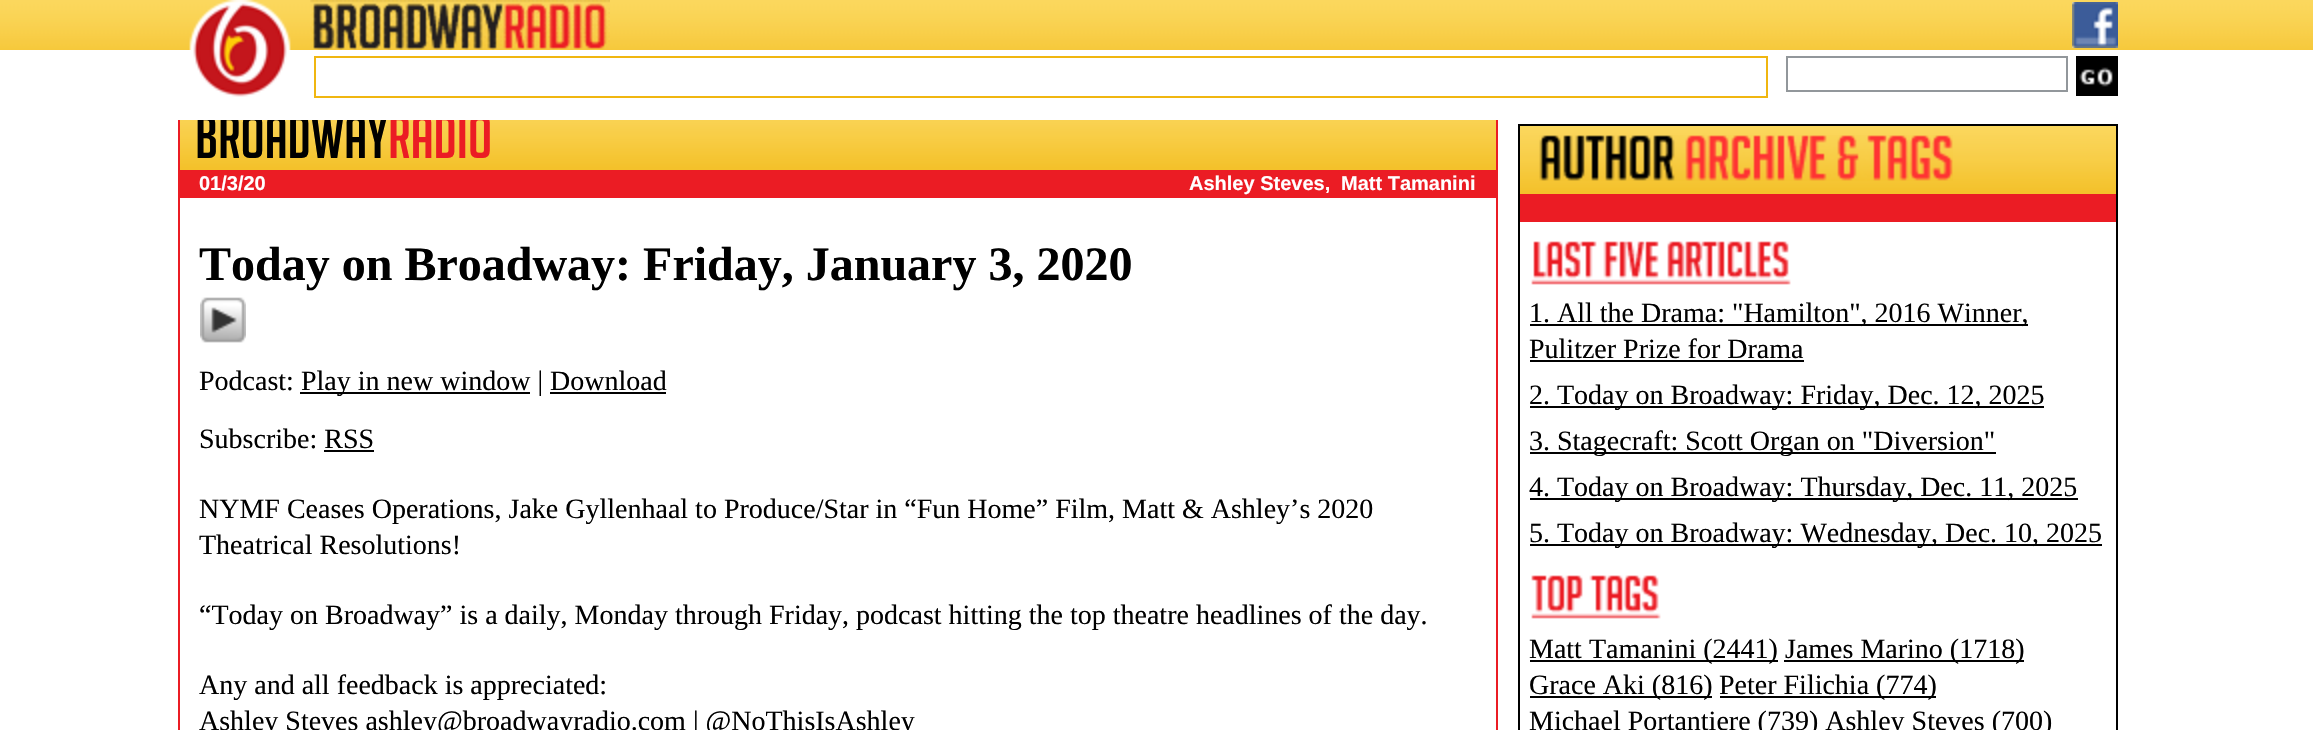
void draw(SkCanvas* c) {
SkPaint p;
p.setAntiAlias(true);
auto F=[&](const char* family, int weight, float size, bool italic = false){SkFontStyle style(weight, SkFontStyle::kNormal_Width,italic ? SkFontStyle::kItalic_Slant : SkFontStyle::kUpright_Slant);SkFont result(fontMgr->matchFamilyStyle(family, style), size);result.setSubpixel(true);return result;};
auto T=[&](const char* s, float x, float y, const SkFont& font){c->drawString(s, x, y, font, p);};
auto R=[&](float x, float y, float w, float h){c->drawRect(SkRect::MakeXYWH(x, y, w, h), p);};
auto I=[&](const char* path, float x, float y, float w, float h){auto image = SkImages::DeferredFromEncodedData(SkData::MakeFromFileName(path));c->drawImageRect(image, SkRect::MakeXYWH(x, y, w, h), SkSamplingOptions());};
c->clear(0xffffffff);
p.setStroke(true);
p.setStrokeWidth(2);
p.setColor(0xffeb1c24);
c->drawRect(SkRect::MakeXYWH(179,101,1318,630),p);
I("6.png",180,120,1316,50);
auto f1 = F("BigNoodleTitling",400,60);
p.setStroke(false);
p.setColor(0xff000000);
T("BROADWAY",195,158,f1);
p.setColor(0xffeb1c24);
T("RADIO",388,158,f1);
p.setColor(0xffffffff);
R(178,100,1320,20);
I("1.png",0,0,2313,50);
I("2.png",189,0,102,97);
I("3.png",310,0,300,50);
I("4.png",2072,2,46,46);
p.setStroke(true);
p.setColor(0xfff0b610);
c->drawRect(SkRect::MakeXYWH(315,57,1452,40),p);
p.setColor(0xff92979b);
c->drawRect(SkRect::MakeXYWH(1787,57,280,34),p);
I("5.png",2076,56,42,40);
p.setStroke(false);
p.setColor(0xffeb1c24);
R(180,170,1316,28);
auto f2 = F("Liberation Sans",700,20);
p.setColor(0xffffffff);
T("01/3/20",199,190,f2);
T("Ashley Steves,",1189,190,f2);
T("Matt Tamanini",1341,190,f2);
auto f3 = F("Liberation Serif",700,48);
p.setColor(0xff000000);
T("Today on Broadway: Friday, January 3, 2020",199,280,f3);
I("7.png",200,297,46,46);
auto f4 = F("Liberation Serif",400,28);
T("Podcast:",199,390,f4);
R(300,392,230,2);
T("Play in new window | Download",301,390,f4);
R(550,392,116,2);
T("Subscribe: RSS",199,448,f4);
R(324,450,50,2);
T("NYMF Ceases Operations, Jake Gyllenhaal to Produce/Star in “Fun Home” Film, Matt & Ashley’s 2020",199,518,f4);
T("Theatrical Resolutions!",199,554,f4);
T("“Today on Broadway” is a daily, Monday through Friday, podcast hitting the top theatre headlines of the day.",199,624,f4);
T("Any and all feedback is appreciated:",199,694,f4);
T("Ashley Steves ashley@broadwayradio.com | @NoThisIsAshley",199,730,f4);
p.setStroke(true);
c->drawRect(SkRect::MakeXYWH(1519,125,598,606),p);
I("8.png",1520,126,596,68);
I("9.png",1539,135,414,46);
p.setStroke(false);
p.setColor(0xffeb1c24);
R(1520,194,596,28);
I("10.png",1531,241,260,44);
p.setColor(0xff000000);
R(1530,324,498,2);
T("1. All the Drama: \"Hamilton\", 2016 Winner,",1529,322,f4);
T("Pulitzer Prize for Drama",1529,358,f4);
R(1530,360,274,2);
R(1530,406,514,2);
T("2. Today on Broadway: Friday, Dec. 12, 2025",1529,404,f4);
R(1530,452,466,2);
T("3. Stagecraft: Scott Organ on \"Diversion\"",1529,450,f4);
R(1530,498,548,2);
T("4. Today on Broadway: Thursday, Dec. 11, 2025",1529,496,f4);
R(1530,544,572,2);
T("5. Today on Broadway: Wednesday, Dec. 10, 2025",1529,542,f4);
I("11.png",1531,575,130,44);
R(1530,660,248,2);
T("Matt Tamanini (2441)",1529,658,f4);
R(1784,660,240,2);
T("James Marino (1718)",1785,658,f4);
R(1530,696,182,2);
T("Grace Aki (816)",1529,694,f4);
R(1720,696,216,2);
T("Peter Filichia (774)",1719,694,f4);
T("Michael Portantiere (739) Ashley Steves (700)",1529,730,f4);
}
